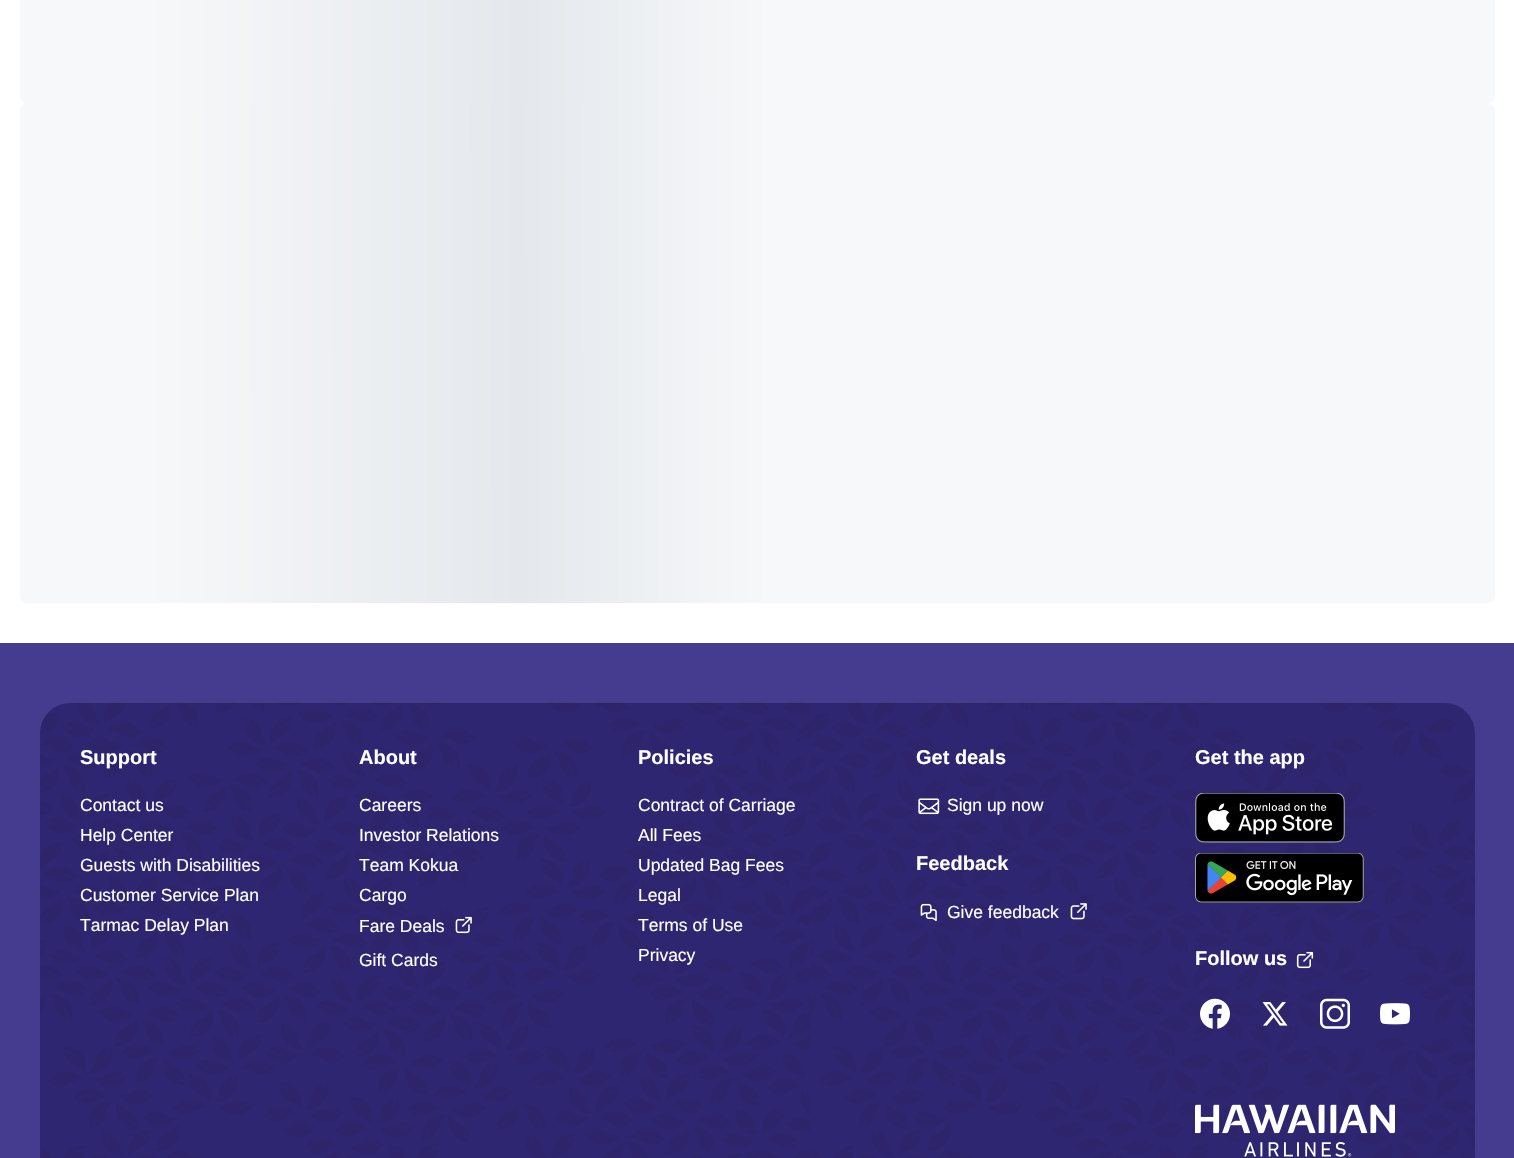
void draw(SkCanvas* c) {
SkPaint p;
p.setAntiAlias(true);
auto F=[&](const char* family, int weight, float size, bool italic = false){SkFontStyle style(weight, SkFontStyle::kNormal_Width,italic ? SkFontStyle::kItalic_Slant : SkFontStyle::kUpright_Slant);SkFont result(fontMgr->matchFamilyStyle(family, style), size);result.setSubpixel(true);return result;};
auto T=[&](const char* s, float x, float y, const SkFont& font){c->drawString(s, x, y, font, p);};
auto R=[&](float x, float y, float w, float h){c->drawRect(SkRect::MakeXYWH(x, y, w, h), p);};
auto Q=[&](float x, float y, float w, float h, float radius){c->drawRoundRect(SkRect::MakeXYWH(x, y, w, h), radius, radius, p);};
auto I=[&](const char* path, float x, float y, float w, float h){auto image = SkImages::DeferredFromEncodedData(SkData::MakeFromFileName(path));c->drawImageRect(image, SkRect::MakeXYWH(x, y, w, h), SkSamplingOptions());};
auto P=[&](const char* data, bool evenOdd = false){SkPath result = *SkParsePath::FromSVGString(data);if (evenOdd) result.setFillType(SkPathFillType::kEvenOdd);return result;};
c->clear(0xffffffff);
p.setColor(0xfff7f8fa);
Q(20,-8,1475,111,8);
{
const SkColor colors[] = {0xfff7f8fa,0xffe4e8ec,0xfff7f8fa};
const float stops[] = {.1,.4,.6};
const SkPoint ends[] = {{20,-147}, {1270,-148}};
p.setShader(SkGradientShader::MakeLinear(ends, colors, stops, 3, SkTileMode::kClamp));
p.setAlpha(255);
}
c->drawPath(P("M28-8h1242v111h-1242c-4.5 0-8-3.5-8-8v-95c0-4.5 3.5-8 8-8z"),p);
p.setShader(nullptr);
p.setColor(0xfff7f8fa);
Q(20,103,1475,500,8);
{
const SkColor colors[] = {0xfff7f8fa,0xffe4e8ec,0xfff7f8fa};
const float stops[] = {.1,.4,.6};
const SkPoint ends[] = {{20,353}, {1270,352}};
p.setShader(SkGradientShader::MakeLinear(ends, colors, stops, 3, SkTileMode::kClamp));
p.setAlpha(255);
}
c->drawPath(P("M28 103h1242v500h-1242c-4.5 0-8-3.5-8-8v-484c0-4.5 3.5-8 8-8z"),p);
p.setShader(nullptr);
p.setColor(0xff463c8f);
R(0,643,1514,515);
p.setColor(0xff2f2672);
Q(40,703,1435,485,30);
I("1.png",40,702,1435,456);
auto f1 = F("Liberation Sans",700,20);
p.setColor(0xffffffff);
T("Support",80,764,f1);
auto f2 = F("Liberation Sans",400,17.5);
T("Contact us",80,811,f2);
T("Help Center",80,841,f2);
T("Guests with Disabilities",80,871,f2);
T("Customer Service Plan",80,901,f2);
T("Tarmac Delay Plan",80,931,f2);
T("About",359,764,f1);
T("Careers",359,811,f2);
T("Investor Relations",359,841,f2);
T("Team Kokua",359,871,f2);
T("Cargo",359,901,f2);
T("Fare Deals",359,932,f2);
I("2.png",455,916,17,18);
T("Gift Cards",359,966,f2);
T("Policies",638,764,f1);
T("Contract of Carriage",638,811,f2);
T("All Fees",638,841,f2);
T("Updated Bag Fees",638,871,f2);
T("Legal",638,901,f2);
T("Terms of Use",638,931,f2);
T("Privacy",638,961,f2);
T("Get deals",916,764,f1);
I("3.png",918,798,22,17);
T("Sign up now",947,811,f2);
T("Feedback",916,870,f1);
I("4.png",920,903,17,18);
T("Give feedback",947,918,f2);
I("5.png",1070,903,17,17);
T("Get the app",1195,764,f1);
I("6.png",1195,793,150,50);
I("7.png",1195,853,169,50);
T("Follow us",1195,965,f1);
I("8.png",1296,951,18,18);
I("9.png",1200,998,30,31);
I("10.png",1262,1002,26,24);
I("11.png",1320,998,30,31);
I("12.png",1380,1003,30,22);
I("13.png",1195,1104,200,53);
}
